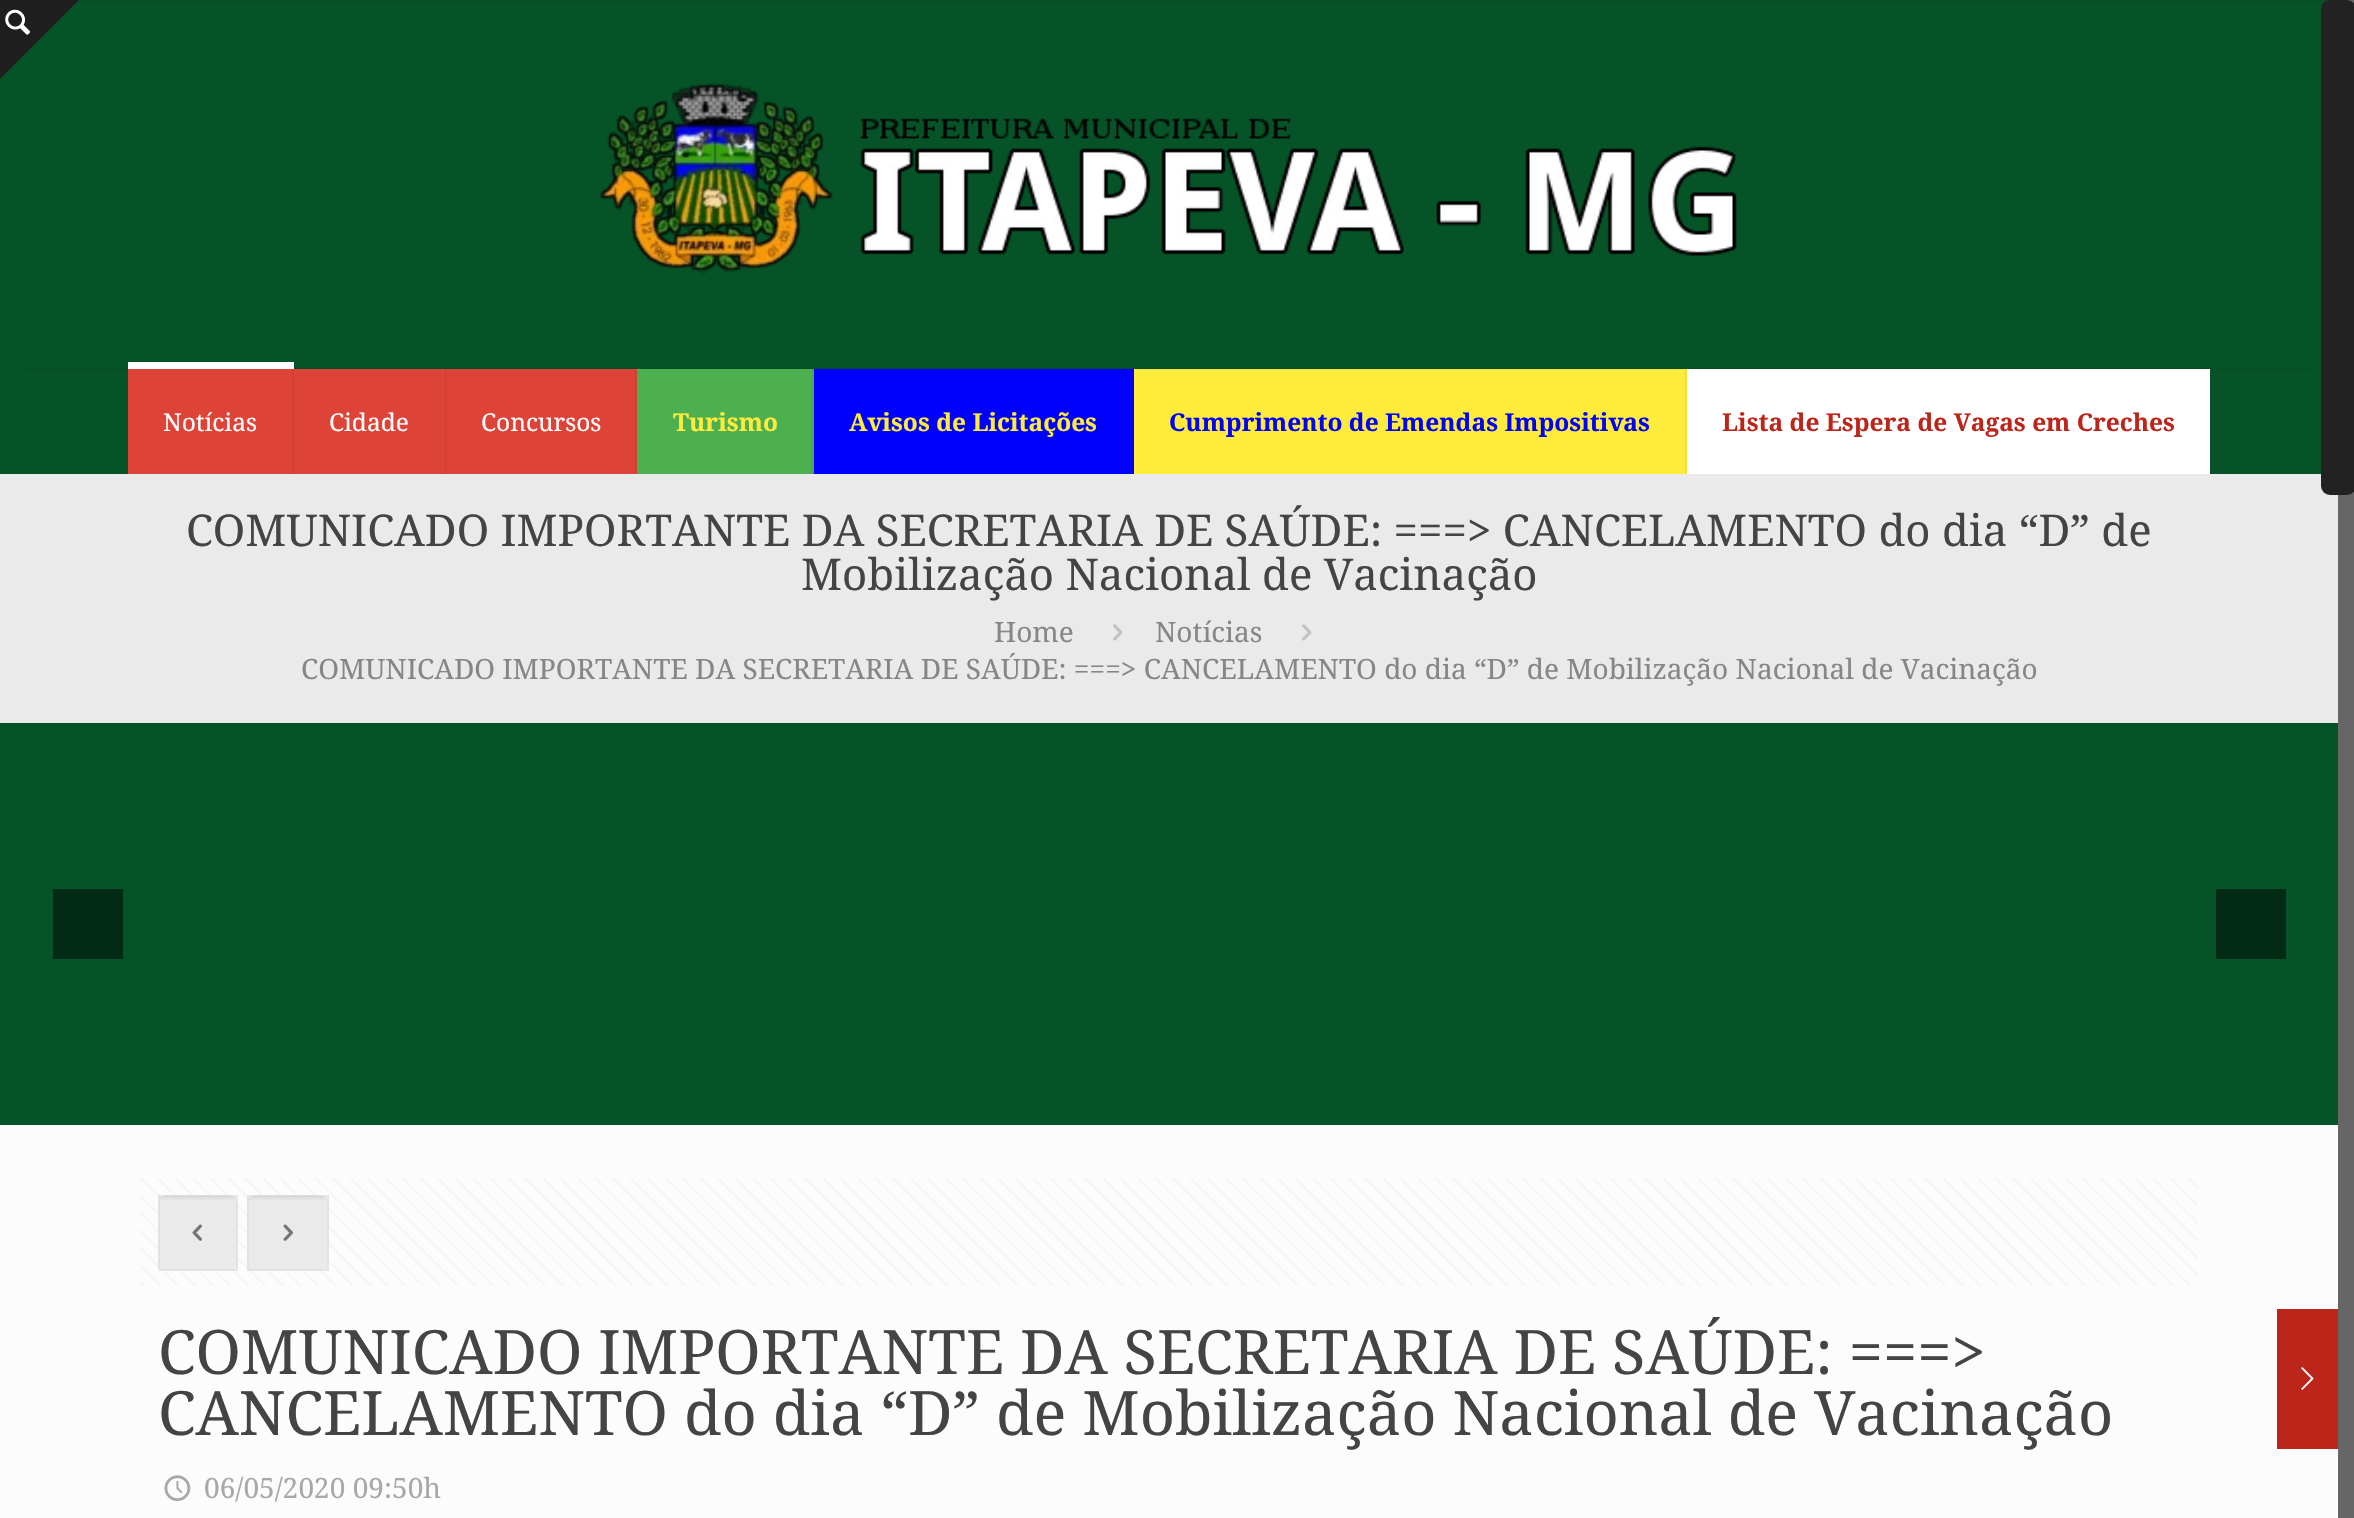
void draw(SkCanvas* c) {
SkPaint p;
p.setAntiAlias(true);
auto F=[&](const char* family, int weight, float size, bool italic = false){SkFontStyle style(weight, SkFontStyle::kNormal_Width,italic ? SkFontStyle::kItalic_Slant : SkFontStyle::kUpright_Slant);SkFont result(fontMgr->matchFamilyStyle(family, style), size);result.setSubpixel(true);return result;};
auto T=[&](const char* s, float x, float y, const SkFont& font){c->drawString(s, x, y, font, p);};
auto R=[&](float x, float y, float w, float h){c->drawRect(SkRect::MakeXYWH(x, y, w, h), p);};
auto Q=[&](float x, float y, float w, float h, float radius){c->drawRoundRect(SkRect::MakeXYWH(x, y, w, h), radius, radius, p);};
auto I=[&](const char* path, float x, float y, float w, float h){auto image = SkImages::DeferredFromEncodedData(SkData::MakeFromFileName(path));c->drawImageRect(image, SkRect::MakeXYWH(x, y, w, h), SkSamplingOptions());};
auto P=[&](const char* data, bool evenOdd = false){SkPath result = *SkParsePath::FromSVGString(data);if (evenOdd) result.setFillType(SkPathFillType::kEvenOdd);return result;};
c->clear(0xfffcfcfc);
p.setColor(0xff065327);
R(0,0,2330,474);
I("2.png",75,0,2255,4);
p.setColor(0xff1e1e1e);
c->drawPath(P("M0 0h79l-79 79z"),p);
I("1.png",5,9,26,26);
p.setColor(0xff666666);
R(2338,0,16,1518);
p.setColor(0xffeaeaea);
R(0,474,2338,249);
p.setColor(0xff222222);
Q(2321,0,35,495,9);
p.setColor(0xff064c24);
R(23,368,2292,1);
I("3.png",600,83,1137,191);
p.setColor(0xffde4337);
R(128,369,507,105);
p.setColor(0xffffffff);
R(128,362,166,7);
p.setColor(0xffd34034);
R(292,369,2,105);
auto f1 = F("Droid Serif",400,24.5);
p.setColor(0xffffffff);
T("Notícias",163,431,f1);
p.setColor(0xffd34034);
R(445,369,2,105);
p.setColor(0xffffffff);
T("Cidade",329,431,f1);
p.setColor(0xffd34034);
R(635,369,2,105);
p.setColor(0xffffffff);
T("Concursos",481,431,f1);
p.setColor(0xff4caf50);
R(637,369,175,105);
p.setColor(0xff48a64c);
R(812,369,2,105);
auto f2 = F("Droid Serif",700,24.5);
p.setColor(0xffffeb3b);
T("Turismo",673,431,f2);
p.setColor(0xff0000ff);
R(814,369,318,105);
p.setColor(0xff0000f2);
R(1132,369,2,105);
p.setColor(0xffffeb3b);
T("Avisos de Licitações",849,431,f2);
R(1134,369,551,105);
p.setColor(0xfff2df38);
R(1685,369,2,105);
p.setColor(0xff0000ff);
T("Cumprimento de Emendas Impositivas",1169,431,f2);
p.setColor(0xffffffff);
R(1687,369,523,105);
p.setColor(0xffbc2519);
T("Lista de Espera de Vagas em Creches",1722,431,f2);
auto f3 = F("Droid Serif",400,43.75);
p.setColor(0xff444444);
T("COMUNICADO IMPORTANTE DA SECRETARIA DE SAÚDE: ===> CANCELAMENTO do dia “D” de",186,546,f3);
T("Mobilização Nacional de Vacinação",801,590,f3);
auto f4 = F("Droid Serif",400,28);
p.setColor(0xff868686);
T("Home",994,642,f4);
I("4.png",1113,624,10,17);
T("Notícias",1155,642,f4);
I("4.png",1302,624,10,17);
T("COMUNICADO IMPORTANTE DA SECRETARIA DE SAÚDE: ===> CANCELAMENTO do dia “D” de Mobilização Nacional de Vacinação",301,679,f4);
p.setColor(0xff064e25);
R(0,723,2338,1);
p.setColor(0xff065327);
R(0,724,2338,401);
p.setColor(0xff032a14);
R(53,889,70,70);
R(2216,889,70,70);
I("5.png",140,1178,2058,108);
p.setColor(0xfff7f7f7);
Q(158,1195,80,76,9);
I("6.png",159,1195,77,5);
p.setStroke(true);
p.setStrokeWidth(2);
p.setColor(0x08000000);
c->drawRect(SkRect::MakeXYWH(159,1196,78,74),p);
p.setStroke(false);
p.setColor(0x0d000000);
R(158,1195,80,76);
I("7.png",192,1224,10,17);
p.setColor(0xfff7f7f7);
Q(247,1195,82,76,9);
I("8.png",248,1195,79,5);
p.setStroke(true);
p.setColor(0x08000000);
c->drawRect(SkRect::MakeXYWH(248,1196,80,74),p);
p.setStroke(false);
p.setColor(0x0d000000);
R(247,1195,82,76);
I("9.png",283,1224,10,17);
auto f5 = F("Droid Serif",400,61.25);
p.setColor(0xff444444);
T("COMUNICADO IMPORTANTE DA SECRETARIA DE SAÚDE: ===>",158,1374,f5);
T("CANCELAMENTO do dia “D” de Mobilização Nacional de Vacinação",158,1435,f5);
I("10.png",164,1475,27,27);
p.setColor(0xffa8a8a8);
T("06/05/2020 09:50h",204,1498,f4);
p.setColor(0xffbc2519);
R(2277,1309,61,140);
I("11.png",2301,1367,13,23);
}
